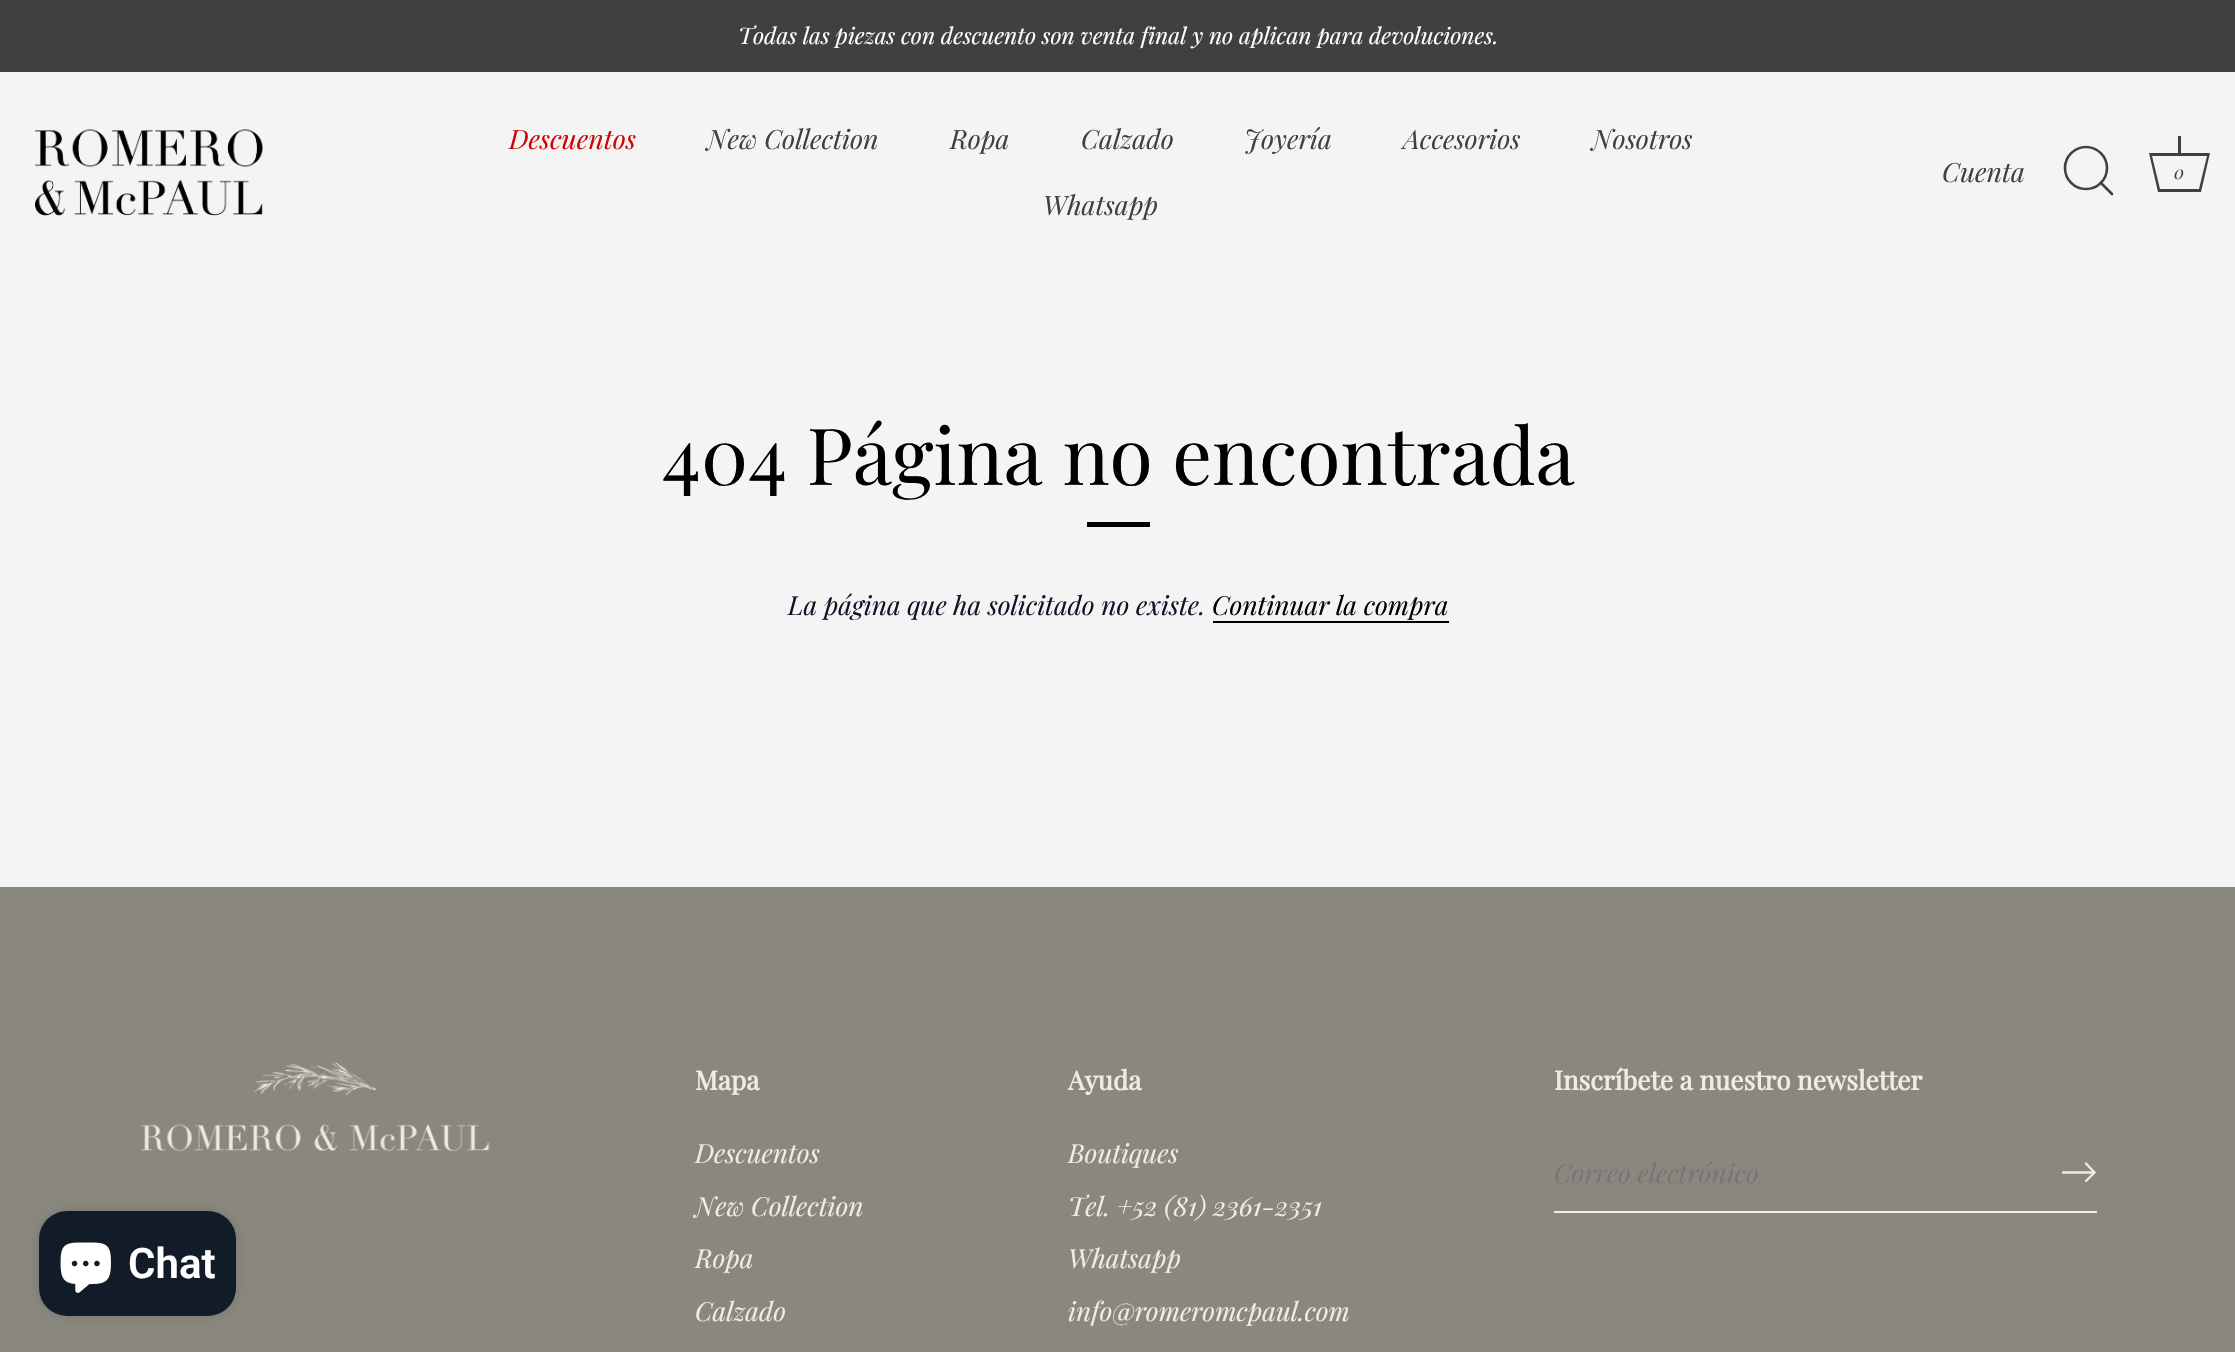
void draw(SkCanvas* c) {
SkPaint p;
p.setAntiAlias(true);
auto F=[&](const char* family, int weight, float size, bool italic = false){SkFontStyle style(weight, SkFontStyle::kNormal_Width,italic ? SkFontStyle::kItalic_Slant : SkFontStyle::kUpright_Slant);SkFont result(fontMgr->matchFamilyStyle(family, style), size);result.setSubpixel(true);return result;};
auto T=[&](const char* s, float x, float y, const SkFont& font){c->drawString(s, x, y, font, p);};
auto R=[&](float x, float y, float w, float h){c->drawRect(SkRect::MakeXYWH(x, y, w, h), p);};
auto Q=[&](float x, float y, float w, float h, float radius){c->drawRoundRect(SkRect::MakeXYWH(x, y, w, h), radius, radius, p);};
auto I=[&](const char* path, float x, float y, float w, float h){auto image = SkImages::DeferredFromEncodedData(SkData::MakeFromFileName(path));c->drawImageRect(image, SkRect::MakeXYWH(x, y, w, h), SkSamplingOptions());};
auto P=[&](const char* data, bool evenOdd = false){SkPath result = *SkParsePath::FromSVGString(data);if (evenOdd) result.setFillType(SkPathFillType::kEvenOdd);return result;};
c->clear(0xfff4f4f4);
p.setColor(0xff423f3f);
R(0,0,2235,72);
auto f1 = F("Playfair Display",400,22.75,true);
p.setColor(0xffffffff);
T("Todas las piezas con descuento son venta final y no aplican para devoluciones.",738,44,f1);
I("1.png",35,129,228,87);
auto f2 = F("Playfair Display",400,26.75,true);
p.setColor(0xffce0404);
T("Descuentos",509,149,f2);
p.setColor(0xff423f3f);
T("New Collection",707,149,f2);
T("Ropa",950,149,f2);
T("Calzado",1081,149,f2);
T("Joyería",1244,149,f2);
T("Accesorios",1403,149,f2);
T("Nosotros",1592,149,f2);
T("Whatsapp",1043,215,f2);
T("Cuenta",1942,182,f2);
p.setStroke(true);
p.setStrokeWidth(2.6);
c->drawCircle(2086,168,21,p);
p.setStrokeCap(SkPaint::kRound_Cap);
p.setStrokeJoin(SkPaint::kRound_Join);
c->drawPath(P("M2112 194l-11-11"),p);
p.setStroke(false);
R(2178,136,3,17);
c->drawPath(P("M2207 156l-8 33h-39l-8-33h55m3-3h-61l9 39h43z"),p);
auto f3 = F("Playfair Display",400,18,true);
T("0",2174,179,f3);
auto f4 = F("Playfair Display",400,78.75);
p.setColor(0xff000000);
T("404 Página no encontrada",662,485,f4);
R(1087,522,63,5);
auto f5 = F("Playfair Display",400,26.25,true);
p.setColor(0xff121226);
T("La página que ha solicitado no existe.",788,615,f5);
p.setColor(0xff000000);
T("Continuar la compra",1212,615,f5);
R(1213,621,236,2);
p.setColor(0xff8a877f);
R(0,887,2235,465);
p.setColor(0x26000000);
p.setMaskFilter(SkMaskFilter::MakeBlur(kNormal_SkBlurStyle, 4.5));
c->drawRoundRect(SkRect::MakeXYWH(39,1211,197,105),28,28,p);
p.setMaskFilter(nullptr);
p.setColor(0xff121c29);
Q(39,1211,197,105,28);
I("2.png",60,1242,51,51);
auto f6 = F("Roboto",600,42);
p.setColor(0xffffffff);
T("Chat",128,1278,f6);
I("3.png",141,1062,349,89);
auto f7 = F("Playfair Display",700,26.25);
p.setColor(0xfff2ebe2);
T("Mapa",695,1090,f7);
T("Descuentos",695,1163,f5);
T("New Collection",695,1216,f5);
T("Ropa",695,1268,f5);
T("Calzado",695,1321,f5);
T("Ayuda",1068,1090,f7);
T("Boutiques",1068,1163,f5);
T("Tel. +52 (81) 2361-2351",1068,1216,f5);
T("Whatsapp",1068,1268,f5);
T("info@romeromcpaul.com",1068,1321,f5);
T("Inscríbete a nuestro newsletter",1554,1090,f7);
R(1554,1211,543,2);
p.setColor(0xff757575);
T("Correo electrónico",1554,1183,f5);
p.setStroke(true);
p.setStrokeWidth(2.3);
p.setStrokeJoin(SkPaint::kMiter_Join);
p.setColor(0xfff2ebe2);
c->drawPath(P("M2086 1181l8.5-8.5l-8.5-9"),p);
p.setStrokeJoin(SkPaint::kRound_Join);
c->drawPath(P("M2093.5 1172.5h-30.5"),p);
}
